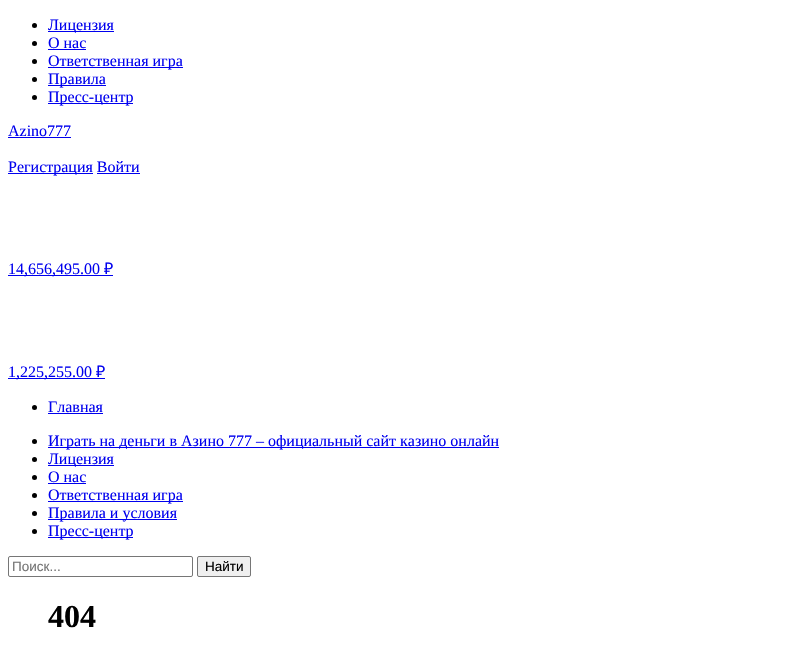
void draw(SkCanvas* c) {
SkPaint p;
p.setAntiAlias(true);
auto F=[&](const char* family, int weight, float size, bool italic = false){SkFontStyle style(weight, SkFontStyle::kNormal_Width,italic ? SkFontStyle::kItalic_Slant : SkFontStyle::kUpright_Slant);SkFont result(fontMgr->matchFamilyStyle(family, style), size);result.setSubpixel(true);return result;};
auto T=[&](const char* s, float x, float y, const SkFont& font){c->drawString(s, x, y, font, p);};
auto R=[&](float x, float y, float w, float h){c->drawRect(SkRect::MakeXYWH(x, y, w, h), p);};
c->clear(0xffffffff);
p.setColor(0xff000000);
c->drawCircle(34.5,25.5,2.5,p);
p.setColor(0xff0000ee);
R(48,31,66,1);
auto f1 = F("Liberation Serif",400,16);
T("Лицензия",48,30,f1);
p.setColor(0xff000000);
c->drawCircle(34.5,43.5,2.5,p);
p.setColor(0xff0000ee);
T("О нас",48,48,f1);
R(48,49,38,1);
p.setColor(0xff000000);
c->drawCircle(34.5,61.5,2.5,p);
p.setColor(0xff0000ee);
R(48,67,135,1);
T("Ответственная игра",48,66,f1);
p.setColor(0xff000000);
c->drawCircle(34.5,79.5,2.5,p);
p.setColor(0xff0000ee);
R(48,85,58,1);
T("Правила",48,84,f1);
p.setColor(0xff000000);
c->drawCircle(34.5,97.5,2.5,p);
p.setColor(0xff0000ee);
R(48,103,85,1);
T("Пресс-центр",48,102,f1);
T("Azino777",8,136,f1);
R(8,137,63,1);
R(8,173,85,1);
T("Регистрация Войти",8,172,f1);
R(97,173,43,1);
R(8,275,105,1);
T("14,656,495.00",8,274,f1);
auto f2 = F("Noto Sans",400,16);
T("₽",104,274,f2);
R(8,378,97,1);
T("1,225,255.00",8,377,f1);
T("₽",96,377,f2);
p.setColor(0xff000000);
c->drawCircle(34.5,407.5,2.5,p);
p.setColor(0xff0000ee);
T("Главная",48,412,f1);
R(48,413,55,1);
p.setColor(0xff000000);
c->drawCircle(34.5,441.5,2.5,p);
p.setColor(0xff0000ee);
R(48,447,451,1);
T("Играть на деньги в Азино 777 – официальный сайт казино онлайн",48,446,f1);
p.setColor(0xff000000);
c->drawCircle(34.5,459.5,2.5,p);
p.setColor(0xff0000ee);
R(48,465,66,1);
T("Лицензия",48,464,f1);
p.setColor(0xff000000);
c->drawCircle(34.5,477.5,2.5,p);
p.setColor(0xff0000ee);
T("О нас",48,482,f1);
R(48,483,38,1);
p.setColor(0xff000000);
c->drawCircle(34.5,495.5,2.5,p);
p.setColor(0xff0000ee);
R(48,501,135,1);
T("Ответственная игра",48,500,f1);
p.setColor(0xff000000);
c->drawCircle(34.5,513.5,2.5,p);
p.setColor(0xff0000ee);
R(48,519,129,1);
T("Правила и условия",48,518,f1);
p.setColor(0xff000000);
c->drawCircle(34.5,531.5,2.5,p);
p.setColor(0xff0000ee);
R(48,537,85,1);
T("Пресс-центр",48,536,f1);
p.setStroke(true);
p.setStrokeWidth(1);
p.setColor(0xff767676);
c->drawRoundRect(SkRect::MakeXYWH(8.5,556.5,184,20),1.5,1.5,p);
auto f3 = F("Liberation Sans",400,13.5);
p.setStroke(false);
p.setColor(0xff757575);
T("Поиск...",12,571,f3);
p.setColor(0xffefefef);
c->drawRoundRect(SkRect::MakeXYWH(197.5,556.5,53,20),1.5,1.5,p);
p.setStroke(true);
p.setColor(0xff767676);
c->drawRoundRect(SkRect::MakeXYWH(197.5,556.5,53,20),1.5,1.5,p);
p.setStroke(false);
p.setColor(0xff000000);
T("Найти",205,571,f3);
auto f4 = F("Liberation Serif",700,32);
T("404",48,627,f4);
}
